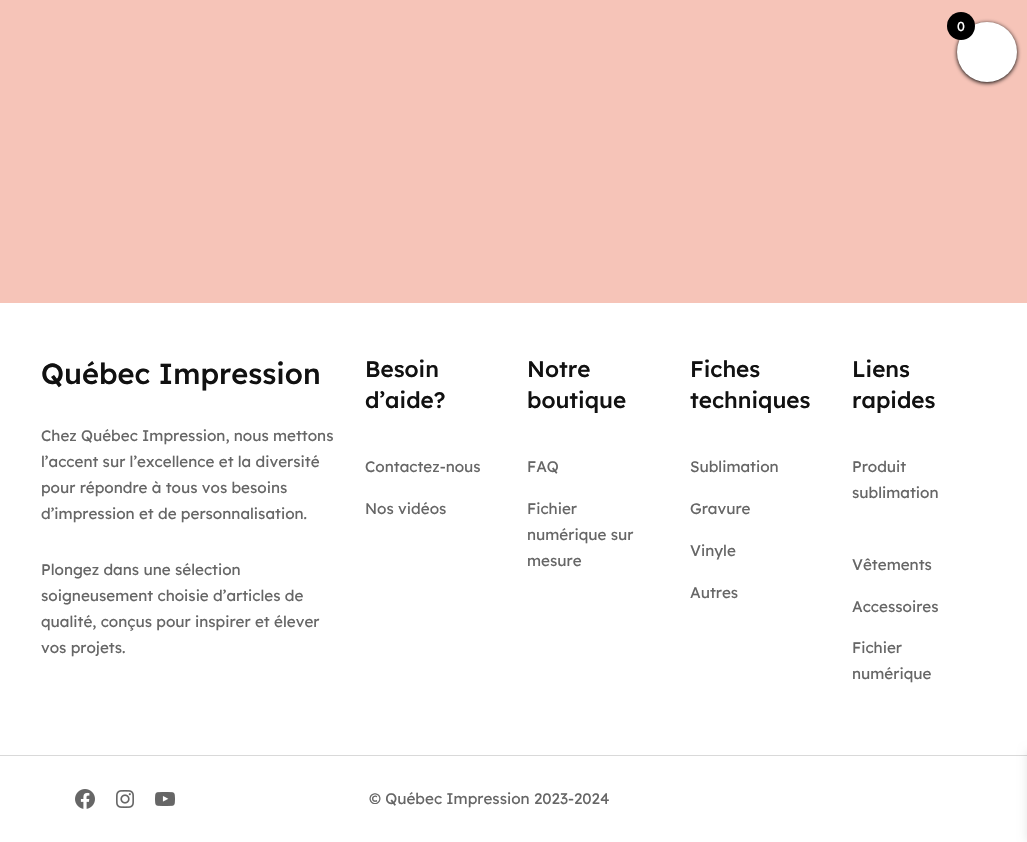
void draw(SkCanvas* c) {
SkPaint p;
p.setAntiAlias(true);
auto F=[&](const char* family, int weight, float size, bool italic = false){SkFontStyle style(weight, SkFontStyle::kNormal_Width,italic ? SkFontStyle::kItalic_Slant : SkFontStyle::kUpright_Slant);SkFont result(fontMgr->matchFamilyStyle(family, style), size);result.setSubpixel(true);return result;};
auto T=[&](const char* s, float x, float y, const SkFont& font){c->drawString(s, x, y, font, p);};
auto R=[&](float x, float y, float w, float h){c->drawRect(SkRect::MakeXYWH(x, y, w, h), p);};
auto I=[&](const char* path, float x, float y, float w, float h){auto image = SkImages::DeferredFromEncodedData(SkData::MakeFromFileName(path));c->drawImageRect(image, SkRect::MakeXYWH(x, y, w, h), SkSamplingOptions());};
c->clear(0xffffffff);
p.setColor(0xfff6c4b8);
R(0,0,1027,303);
p.setColor(0xff000000);
p.setMaskFilter(SkMaskFilter::MakeBlur(kNormal_SkBlurStyle, 2));
c->drawRoundRect(SkRect::MakeXYWH(957,23,60,60),30,30,p);
p.setMaskFilter(nullptr);
p.setColor(0xffffffff);
c->drawCircle(987,52,30,p);
p.setColor(0xff000000);
c->drawCircle(961,26,14,p);
auto f1 = F("Lexend",400,13);
p.setColor(0xffffffff);
T("0",957,31,f1);
p.setColor(0xffd9d9d9);
R(0,755,1027,1);
p.setColor(0x1a000000);
p.setMaskFilter(SkMaskFilter::MakeBlur(kNormal_SkBlurStyle, 5));
c->drawRect(SkRect::MakeXYWH(1027,751,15,90),p);
p.setMaskFilter(nullptr);
auto f2 = F("Lexend",500,29);
p.setColor(0xff111111);
T("Québec Impression",41,384,f2);
auto f3 = F("Lexend",400,15.25);
p.setColor(0xff666666);
T("Chez Québec Impression, nous mettons",41,441,f3);
T("l’accent sur l’excellence et la diversité",41,467,f3);
T("pour répondre à tous vos besoins",41,493,f3);
T("d’impression et de personnalisation.",41,519,f3);
T("Plongez dans une sélection",41,575,f3);
T("soigneusement choisie d’articles de",41,601,f3);
T("qualité, conçus pour inspirer et élever",41,627,f3);
T("vos projets.",41,653,f3);
auto f4 = F("Lexend",500,22.5);
p.setColor(0xff111111);
T("Besoin",365,377,f4);
T("d’aide?",365,408,f4);
p.setColor(0xff666666);
T("Contactez-nous",365,472,f3);
T("Nos vidéos",365,514,f3);
p.setColor(0xff111111);
T("Notre",527,377,f4);
T("boutique",527,408,f4);
p.setColor(0xff666666);
T("FAQ",527,472,f3);
T("Fichier",527,514,f3);
T("numérique sur",527,540,f3);
T("mesure",527,566,f3);
p.setColor(0xff111111);
T("Fiches",690,377,f4);
T("techniques",690,408,f4);
p.setColor(0xff666666);
T("Sublimation",690,472,f3);
T("Gravure",690,514,f3);
T("Vinyle",690,556,f3);
T("Autres",690,598,f3);
p.setColor(0xff111111);
T("Liens",852,377,f4);
T("rapides",852,408,f4);
p.setColor(0xff666666);
T("Produit",852,472,f3);
T("sublimation",852,498,f3);
T("Vêtements",852,570,f3);
T("Accessoires",852,612,f3);
T("Fichier",852,653,f3);
T("numérique",852,679,f3);
I("1.png",75,789,20,20);
I("2.png",116,790,18,18);
I("3.png",155,792,20,14);
T("© Québec Impression 2023-2024",369,804,f3);
}
